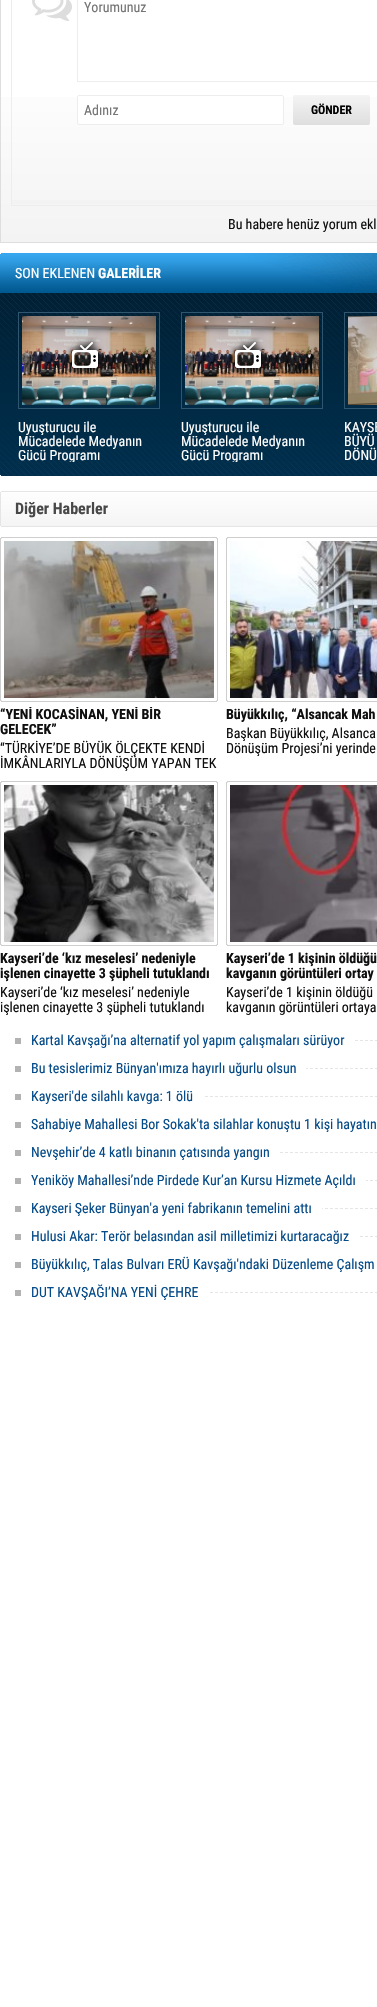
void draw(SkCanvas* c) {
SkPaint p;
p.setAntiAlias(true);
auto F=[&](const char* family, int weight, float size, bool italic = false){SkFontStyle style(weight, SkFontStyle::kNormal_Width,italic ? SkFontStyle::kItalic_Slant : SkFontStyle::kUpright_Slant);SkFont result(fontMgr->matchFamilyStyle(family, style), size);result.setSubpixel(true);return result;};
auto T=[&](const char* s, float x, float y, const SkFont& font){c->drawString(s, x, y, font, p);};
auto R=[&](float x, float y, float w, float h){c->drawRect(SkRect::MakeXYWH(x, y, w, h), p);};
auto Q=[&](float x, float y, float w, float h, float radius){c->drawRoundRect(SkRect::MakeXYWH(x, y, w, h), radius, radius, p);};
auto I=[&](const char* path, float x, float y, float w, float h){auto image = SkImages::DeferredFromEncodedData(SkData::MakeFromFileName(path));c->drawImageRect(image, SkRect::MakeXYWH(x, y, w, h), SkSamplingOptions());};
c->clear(0xffffffff);
{
const SkColor colors[] = {0xffffffff,0xfff3f3f3};
const float stops[] = {.35,1};
const SkPoint ends[] = {{335,-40}, {335,242}};
p.setShader(SkGradientShader::MakeLinear(ends, colors, stops, 2, SkTileMode::kClamp));
p.setAlpha(255);
}
R(1,97,376,145);
p.setStroke(true);
p.setStrokeWidth(1);
p.setShader(nullptr);
p.setColor(0xffdedede);
c->drawRect(SkRect::MakeXYWH(.5,-.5,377,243),p);
p.setStroke(false);
{
const SkColor colors[] = {0xffffffff,0xfff3f3f3};
const float stops[] = {.5,1};
const SkPoint ends[] = {{335,-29}, {335,205}};
p.setShader(SkGradientShader::MakeLinear(ends, colors, stops, 2, SkTileMode::kClamp));
p.setAlpha(255);
}
R(12,200,365,4);
p.setStroke(true);
p.setShader(nullptr);
p.setColor(0xffededed);
c->drawRect(SkRect::MakeXYWH(11.5,-.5,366,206),p);
I("1.png",32,0,40,21);
c->drawRect(SkRect::MakeXYWH(77.5,-.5,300,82),p);
auto f1 = F("Roboto Condensed",400,14);
p.setStroke(false);
p.setColor(0xff757575);
T("Yorumunuz",84,12,f1);
p.setColor(0xffffffff);
c->drawRoundRect(SkRect::MakeXYWH(77.5,95.5,206,29),1.5,1.5,p);
p.setStroke(true);
p.setColor(0xffededed);
c->drawRoundRect(SkRect::MakeXYWH(77.5,95.5,206,29),1.5,1.5,p);
p.setStroke(false);
p.setColor(0xff757575);
T("Adınız",84,115,f1);
{
const SkColor colors[] = {0xfff4f4f4,0xffdedede};
const float stops[] = {0,1};
const SkPoint ends[] = {{332,95}, {332,125}};
p.setShader(SkGradientShader::MakeLinear(ends, colors, stops, 2, SkTileMode::kClamp));
p.setAlpha(255);
}
Q(293,95,77,30,2);
auto f2 = F("Roboto Condensed",700,12);
p.setShader(nullptr);
p.setColor(0xff000000);
T("GÖNDER",311,114,f2);
p.setColor(0xff0f0f0f);
T("Bu habere henüz yorum ekl",228,229,f1);
I("2.png",0,253,377,223);
p.setColor(0xffffffff);
T("SON EKLENEN",15,278,f1);
auto f3 = F("Roboto Condensed",700,14);
T("GALERİLER",98,278,f3);
I("3.png",22,316,134,89);
I("4.png",66,337,38,37);
T("Uyuşturucu ile",18,432,f1);
T("Mücadelede Medyanın",18,446,f1);
c->save();
c->clipRect(SkRect::MakeXYWH(18,420,142,42));
T("Gücü Programı",18,460,f1);
c->restore();
I("3.png",185,316,134,89);
I("4.png",229,337,38,37);
T("Uyuşturucu ile",181,432,f1);
T("Mücadelede Medyanın",181,446,f1);
c->save();
c->clipRect(SkRect::MakeXYWH(181,420,142,42));
T("Gücü Programı",181,460,f1);
c->restore();
I("5.png",348,316,29,89);
T("KAYSE",344,432,f1);
T("BÜYÜ",344,446,f1);
T("DÖNÜ",344,460,f1);
I("6.png",0,491,377,36);
auto f4 = F("Roboto Condensed",700,16);
p.setColor(0xff484848);
T("Diğer Haberler",15,514,f4);
I("7.png",0,537,218,165);
I("8.png",4,541,210,157);
c->save();
c->clipRect(SkRect::MakeXYWH(0,707,218,64));
p.setColor(0xff0f0f0f);
T("“YENİ KOCASİNAN, YENİ BİR",0,719,f3);
c->restore();
T("GELECEK”",0,734,f3);
T("“TÜRKİYE’DE BÜYÜK ÖLÇEKTE KENDİ",0,753,f1);
T("İMKÂNLARIYLA DÖNÜŞÜM YAPAN TEK",0,768,f1);
I("9.png",226,537,151,165);
I("10.png",230,541,147,157);
T("Büyükkılıç, “Alsancak Mah",226,719,f3);
T("Başkan Büyükkılıç, Alsanca",226,738,f1);
T("Dönüşüm Projesi’ni yerinde",226,753,f1);
I("7.png",0,781,218,165);
I("11.png",4,785,210,157);
T("Kayseri’de ‘kız meselesi’ nedeniyle",0,963,f3);
T("işlenen cinayette 3 şüpheli tutuklandı",0,978,f3);
T("Kayseri’de ‘kız meselesi’ nedeniyle",0,997,f1);
T("işlenen cinayette 3 şüpheli tutuklandı",0,1012,f1);
I("9.png",226,781,151,165);
I("12.png",230,785,147,157);
T("Kayseri’de 1 kişinin öldüğü",226,963,f3);
T("kavganın görüntüleri ortay",226,978,f3);
T("Kayseri’de 1 kişinin öldüğü",226,997,f1);
T("kavganın görüntüleri ortaya",226,1012,f1);
I("13.png",355,1040,22,1);
p.setColor(0xffb2b2b2);
R(15,1038,6,6);
p.setColor(0xff054b88);
T("Kartal Kavşağı’na alternatif yol yapım çalışmaları sürüyor",31,1045,f1);
I("14.png",306,1068,71,1);
p.setColor(0xffb2b2b2);
R(15,1066,6,6);
p.setColor(0xff054b88);
T("Bu tesislerimiz Bünyan'ımıza hayırlı uğurlu olsun",31,1073,f1);
I("15.png",205,1096,172,1);
p.setColor(0xffb2b2b2);
R(15,1094,6,6);
p.setColor(0xff054b88);
T("Kayseri'de silahlı kavga: 1 ölü",31,1101,f1);
p.setColor(0xffb2b2b2);
R(15,1122,6,6);
p.setColor(0xff054b88);
T("Sahabiye Mahallesi Bor Sokak'ta silahlar konuştu 1 kişi hayatın",31,1129,f1);
I("16.png",280,1152,97,1);
p.setColor(0xffb2b2b2);
R(15,1150,6,6);
p.setColor(0xff054b88);
T("Nevşehir’de 4 katlı binanın çatısında yangın",31,1157,f1);
I("17.png",366,1180,11,1);
p.setColor(0xffb2b2b2);
R(15,1178,6,6);
p.setColor(0xff054b88);
T("Yeniköy Mahallesi’nde Pirdede Kur’an Kursu Hizmete Açıldı",31,1185,f1);
I("18.png",322,1208,55,1);
p.setColor(0xffb2b2b2);
R(15,1206,6,6);
p.setColor(0xff054b88);
T("Kayseri Şeker Bünyan'a yeni fabrikanın temelini attı",31,1213,f1);
I("19.png",360,1236,17,1);
p.setColor(0xffb2b2b2);
R(15,1234,6,6);
p.setColor(0xff054b88);
T("Hulusi Akar: Terör belasından asil milletimizi kurtaracağız",31,1241,f1);
p.setColor(0xffb2b2b2);
R(15,1262,6,6);
p.setColor(0xff054b88);
T("Büyükkılıç, Talas Bulvarı ERÜ Kavşağı'ndaki Düzenleme Çalışm",31,1269,f1);
I("20.png",210,1292,167,1);
p.setColor(0xffb2b2b2);
R(15,1290,6,6);
p.setColor(0xff054b88);
T("DUT KAVŞAĞI’NA YENİ ÇEHRE",31,1297,f1);
}
